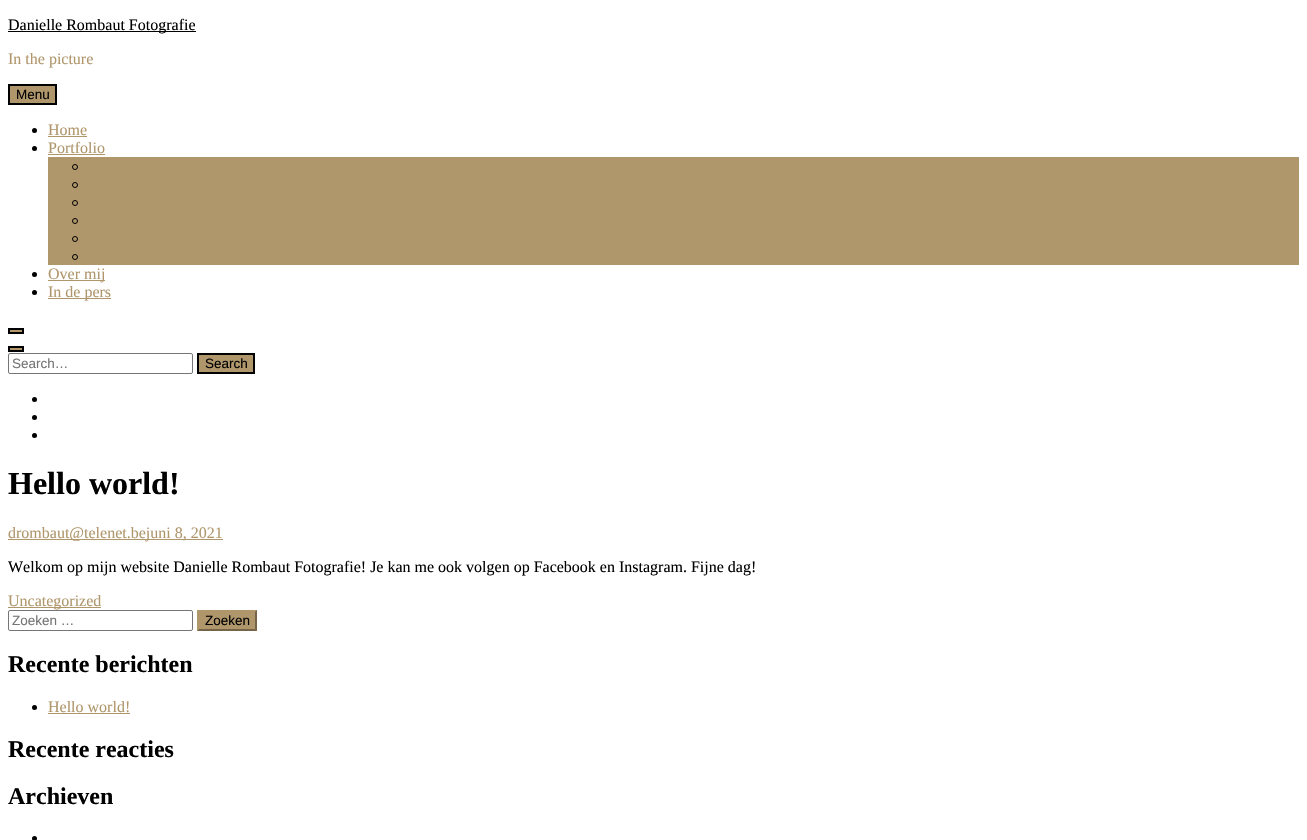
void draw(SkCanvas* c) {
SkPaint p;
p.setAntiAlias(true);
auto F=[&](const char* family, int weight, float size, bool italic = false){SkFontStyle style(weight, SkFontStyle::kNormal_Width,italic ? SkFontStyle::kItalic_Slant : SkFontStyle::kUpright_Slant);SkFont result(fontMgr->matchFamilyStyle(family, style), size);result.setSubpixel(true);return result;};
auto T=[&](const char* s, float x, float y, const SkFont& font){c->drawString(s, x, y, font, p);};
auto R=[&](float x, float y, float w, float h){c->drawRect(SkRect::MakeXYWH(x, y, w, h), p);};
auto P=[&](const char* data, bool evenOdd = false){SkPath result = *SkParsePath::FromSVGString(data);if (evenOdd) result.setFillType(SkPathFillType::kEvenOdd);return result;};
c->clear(0xffffffff);
p.setColor(0xff000000);
R(8,31,188,1);
auto f1 = F("Liberation Serif",400,16);
T("Danielle Rombaut Fotografie",8,30,f1);
p.setColor(0xffaf966b);
T("In the picture",8,64,f1);
c->drawRect(SkRect::MakeXYWH(9,85,47,19),p);
p.setStroke(true);
p.setStrokeWidth(2);
p.setColor(0xff000000);
c->drawRect(SkRect::MakeXYWH(9,85,47,19),p);
auto f2 = F("Liberation Sans",400,13.5);
p.setStroke(false);
T("Menu",16,99,f2);
c->drawCircle(34.5,130.5,2.5,p);
p.setColor(0xffaf966b);
T("Home",48,135,f1);
R(48,136,39,1);
p.setColor(0xff000000);
c->drawCircle(34.5,148.5,2.5,p);
p.setColor(0xffaf966b);
T("Portfolio",48,153,f1);
R(48,154,57,1);
R(48,157,1251,108);
p.setStroke(true);
p.setStrokeWidth(1);
p.setColor(0xff000000);
c->drawCircle(75,167,2.5,p);
c->drawCircle(75,185,2.5,p);
c->drawCircle(75,203,2.5,p);
c->drawCircle(75,221,2.5,p);
c->drawCircle(75,239,2.5,p);
c->drawCircle(75,257,2.5,p);
p.setStroke(false);
c->drawCircle(34.5,274.5,2.5,p);
p.setColor(0xffaf966b);
R(48,280,57,1);
T("Over mij",48,279,f1);
p.setColor(0xff000000);
c->drawCircle(34.5,292.5,2.5,p);
p.setColor(0xffaf966b);
R(48,298,63,1);
T("In de pers",48,297,f1);
c->drawRect(SkRect::MakeXYWH(9,329,14,4),p);
p.setStroke(true);
p.setStrokeWidth(2);
p.setColor(0xff000000);
c->drawRect(SkRect::MakeXYWH(9,329,14,4),p);
p.setStroke(false);
p.setColor(0xffaf966b);
c->drawRect(SkRect::MakeXYWH(9,347,14,4),p);
p.setStroke(true);
p.setColor(0xff000000);
c->drawRect(SkRect::MakeXYWH(9,347,14,4),p);
p.setStrokeWidth(1);
p.setColor(0xff767676);
c->drawRoundRect(SkRect::MakeXYWH(8.5,353.5,184,20),1.5,1.5,p);
p.setStroke(false);
p.setColor(0xff757575);
T("Search…",12,368,f2);
p.setColor(0xffaf966b);
c->drawRect(SkRect::MakeXYWH(198,354,56,19),p);
p.setStroke(true);
p.setStrokeWidth(2);
p.setColor(0xff000000);
c->drawRect(SkRect::MakeXYWH(198,354,56,19),p);
p.setStroke(false);
T("Search",205,368,f2);
c->drawCircle(34.5,399.5,2.5,p);
c->drawCircle(34.5,417.5,2.5,p);
c->drawCircle(34.5,435.5,2.5,p);
auto f3 = F("Liberation Serif",700,32);
T("Hello world!",8,494,f3);
p.setColor(0xffaf966b);
R(8,539,215,1);
T("drombaut@telenet.bejuni 8, 2021",8,538,f1);
p.setColor(0xff000000);
T("Welkom op mijn website Danielle Rombaut Fotografie! Je kan me ook volgen op Facebook en Instagram. Fijne dag!",8,572,f1);
p.setColor(0xffaf966b);
R(8,607,93,1);
T("Uncategorized",8,606,f1);
p.setStroke(true);
p.setStrokeWidth(1);
p.setColor(0xff767676);
c->drawRoundRect(SkRect::MakeXYWH(8.5,610.5,184,20),1.5,1.5,p);
p.setStroke(false);
p.setColor(0xff757575);
T("Zoeken …",12,625,f2);
p.setColor(0xffaf966b);
R(197,610,60,21);
p.setColor(0xff756447);
c->drawPath(P("M257 610v21l-2-2v-17z"),p);
c->drawPath(P("M257 631h-60l2-2h56z"),p);
p.setColor(0xffaf966b);
c->drawPath(P("M197 631v-21l2 2v17z"),p);
p.setColor(0xff000000);
T("Zoeken",205,625,f2);
auto f4 = F("Liberation Serif",700,24);
T("Recente berichten",8,672,f4);
c->drawCircle(34.5,707.5,2.5,p);
p.setColor(0xffaf966b);
T("Hello world!",48,712,f1);
R(48,713,82,1);
p.setColor(0xff000000);
T("Recente reacties",8,757,f4);
T("Archieven",8,804,f4);
c->drawCircle(34.5,838.5,2.5,p);
}
